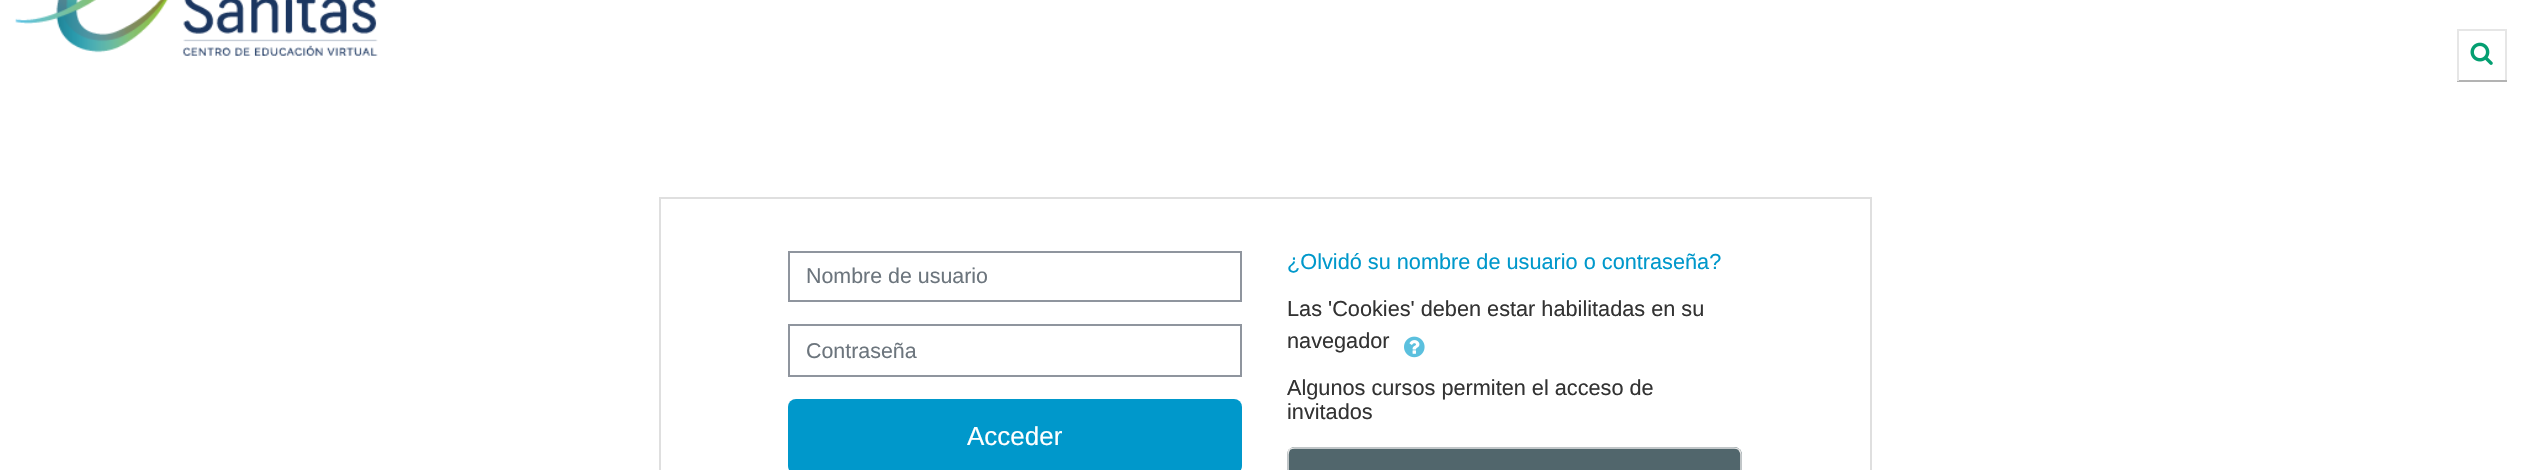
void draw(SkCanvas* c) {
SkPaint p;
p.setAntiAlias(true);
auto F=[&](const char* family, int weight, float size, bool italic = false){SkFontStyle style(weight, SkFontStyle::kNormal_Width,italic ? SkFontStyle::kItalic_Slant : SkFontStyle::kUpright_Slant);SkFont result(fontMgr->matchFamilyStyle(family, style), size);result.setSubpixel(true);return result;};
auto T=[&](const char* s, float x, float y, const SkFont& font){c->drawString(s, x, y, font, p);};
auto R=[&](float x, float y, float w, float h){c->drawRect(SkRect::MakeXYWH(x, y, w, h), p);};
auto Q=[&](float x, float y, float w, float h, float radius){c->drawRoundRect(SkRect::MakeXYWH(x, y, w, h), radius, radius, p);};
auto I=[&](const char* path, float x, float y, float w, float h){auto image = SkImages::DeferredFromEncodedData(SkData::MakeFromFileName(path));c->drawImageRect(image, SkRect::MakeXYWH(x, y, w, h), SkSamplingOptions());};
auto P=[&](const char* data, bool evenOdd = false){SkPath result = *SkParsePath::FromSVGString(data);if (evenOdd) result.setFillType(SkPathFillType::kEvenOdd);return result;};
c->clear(0xffffffff);
I("1.png",15,0,363,56);
p.setColor(0xffe6e6e6);
R(2457,29,50,2);
R(2505,29,2,52);
p.setColor(0xffb3b3b3);
R(2457,80,50,2);
p.setColor(0xffe6e6e6);
R(2457,29,2,52);
I("2.png",2470,42,23,23);
p.setStroke(true);
p.setStrokeWidth(2);
p.setColor(0xffdfdfdf);
c->drawRect(SkRect::MakeXYWH(660,198,1211,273),p);
p.setColor(0xff8f959e);
c->drawRect(SkRect::MakeXYWH(789,252,452,49),p);
auto f1 = F("Liberation Sans",400,21.4);
p.setStroke(false);
p.setColor(0xff6c757d);
T("Nombre de usuario",806,283,f1);
p.setStroke(true);
p.setColor(0xff8f959e);
c->drawRect(SkRect::MakeXYWH(789,325,452,51),p);
p.setStroke(false);
p.setColor(0xff6c757d);
T("Contraseña",806,358,f1);
p.setColor(0xff0098cb);
Q(788,399,454,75,8);
auto f2 = F("Liberation Sans",400,26);
p.setColor(0xffffffff);
T("Acceder",967,445,f2);
auto f3 = F("Liberation Sans",400,21.7);
p.setColor(0xff0098cb);
T("¿Olvidó su nombre de usuario o contraseña?",1287,269,f3);
p.setColor(0xff333333);
T("Las 'Cookies' deben estar habilitadas en su",1287,316,f3);
T("navegador",1287,348,f3);
I("3.png",1404,336,21,22);
T("Algunos cursos permiten el acceso de",1287,395,f3);
T("invitados",1287,419,f3);
p.setColor(0xff51666c);
Q(1287,447,455,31,8);
p.setStroke(true);
p.setStrokeWidth(1.5);
p.setColor(0xffe6e6e6);
c->drawPath(P("M1289.5 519.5c-1-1.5-1.5-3-1.5-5v-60c0-2 .5-3.5 1.5-5c1.5-1 3-1.5 5-1.5h439.5c2 0 3.5 .5 5 1.5c1 1.5 2 3 2 5v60c0 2-1 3.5-2 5"),p);
}
